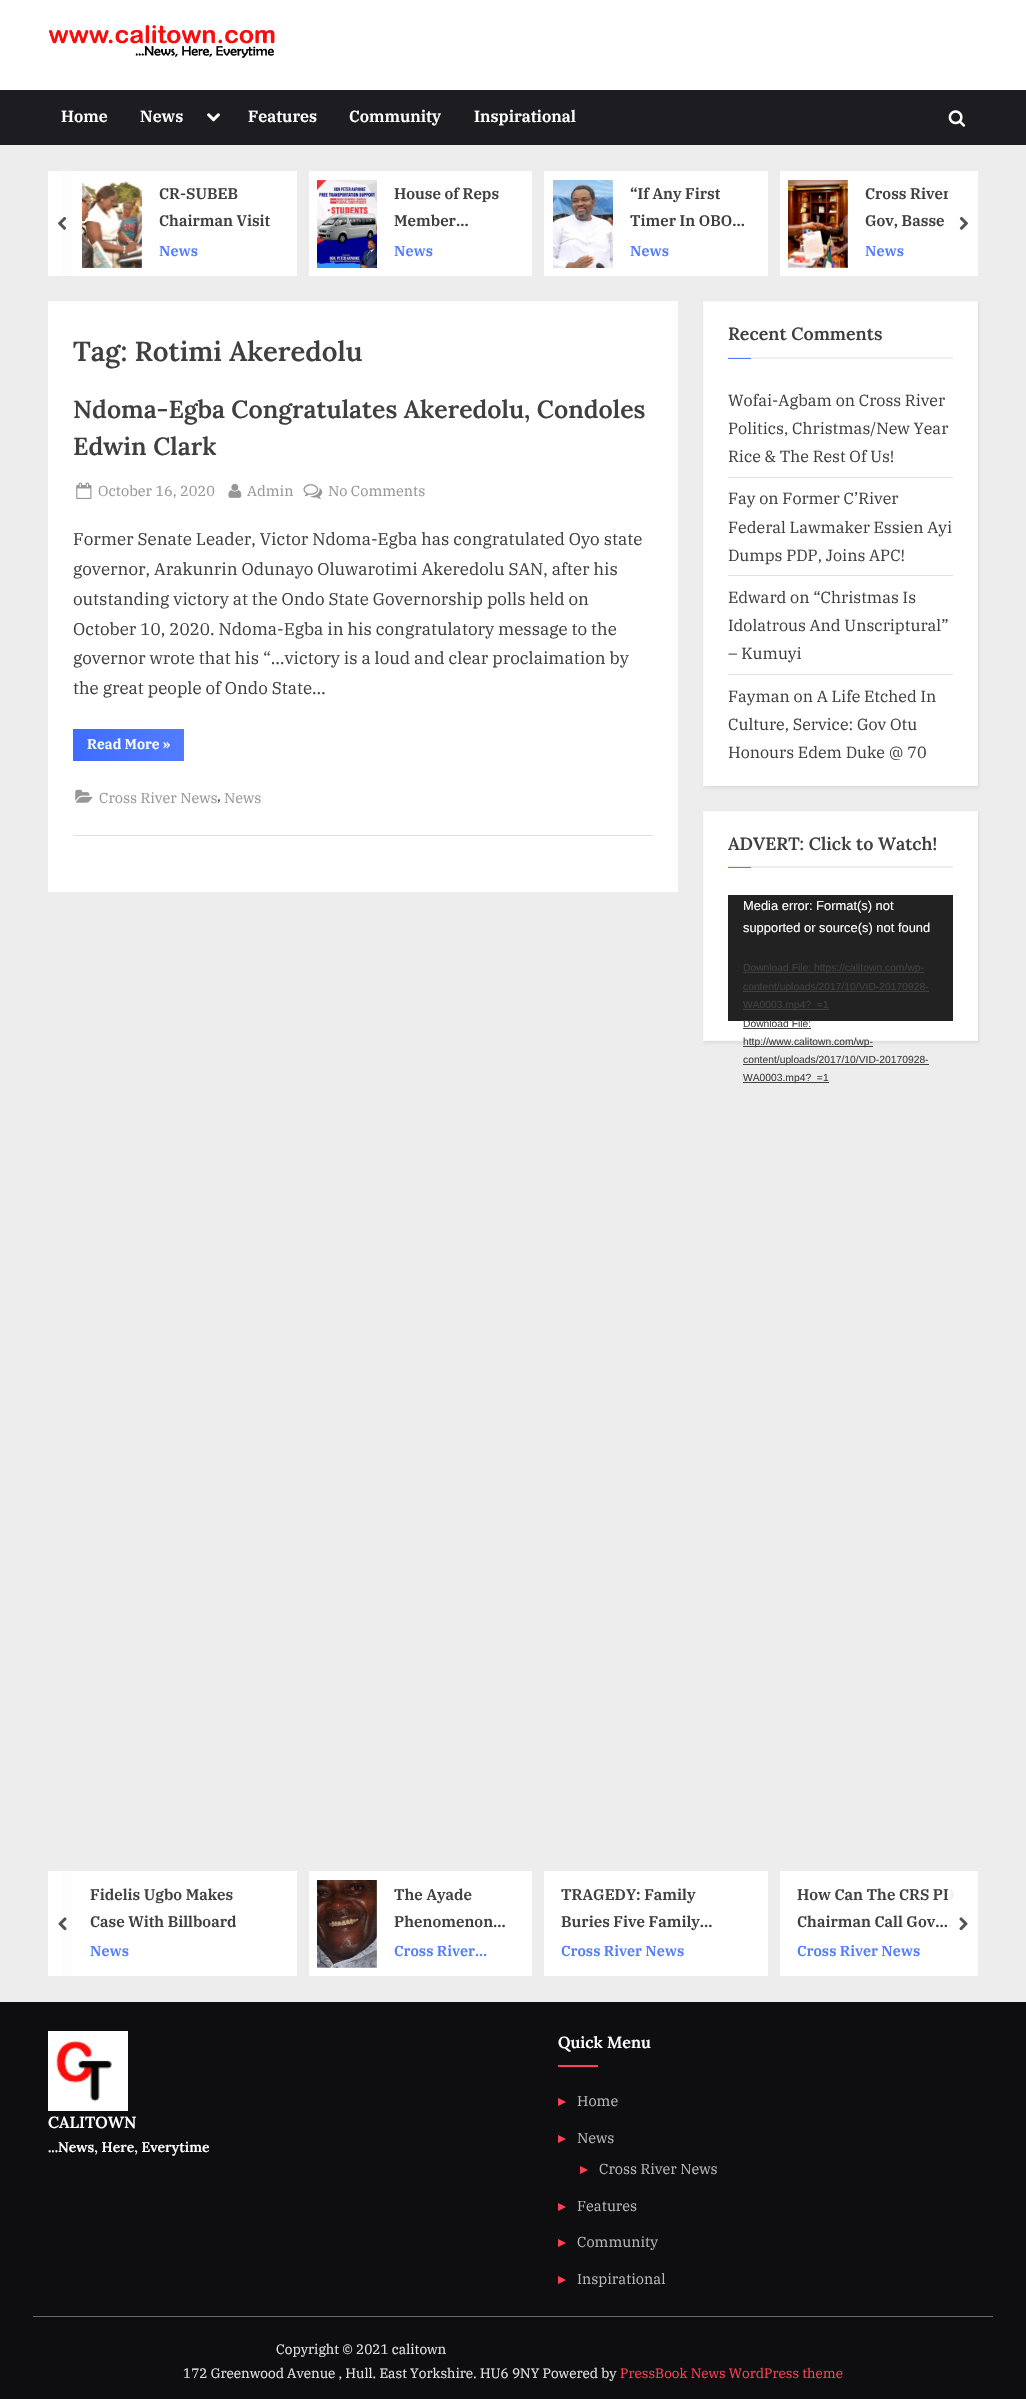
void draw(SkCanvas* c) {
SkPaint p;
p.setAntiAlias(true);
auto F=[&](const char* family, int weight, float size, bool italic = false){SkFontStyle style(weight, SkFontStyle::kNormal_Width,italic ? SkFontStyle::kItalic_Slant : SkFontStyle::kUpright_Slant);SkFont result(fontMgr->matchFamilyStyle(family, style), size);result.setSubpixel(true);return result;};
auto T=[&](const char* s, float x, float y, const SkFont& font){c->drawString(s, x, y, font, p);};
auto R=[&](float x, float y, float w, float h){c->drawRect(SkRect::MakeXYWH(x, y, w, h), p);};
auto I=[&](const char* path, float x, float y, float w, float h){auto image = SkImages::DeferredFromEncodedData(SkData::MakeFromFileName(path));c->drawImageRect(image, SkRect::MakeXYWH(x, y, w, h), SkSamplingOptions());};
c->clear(0xffededed);
p.setColor(0xfffdfdfd);
R(61,1871,12,105);
R(61,171,12,105);
p.setColor(0xffffffff);
R(0,0,1026,90);
I("1.png",48,24,227,34);
p.setColor(0xff1c1c21);
R(0,90,1026,55);
auto f1 = F("IBM Plex Serif",600,16.1);
p.setColor(0xffffffff);
T("Home",61,122,f1);
T("News",140,122,f1);
I("2.png",207,113,13,9);
T("Features",248,122,f1);
T("Community",349,122,f1);
T("Inspirational",474,122,f1);
I("3.png",948,110,18,17);
R(48,171,13,105);
R(73,171,224,105);
I("4.png",82,181,60,87);
auto f2 = F("IBM Plex Serif",600,15.25);
p.setColor(0xff404040);
T("CR-SUBEB",159,199,f2);
T("Chairman Visit",159,226,f2);
auto f3 = F("IBM Plex Serif",600,14.5);
p.setColor(0xff537cff);
T("News",159,256,f3);
p.setColor(0xffffffff);
R(309,171,223,105);
I("5.png",317,180,60,88);
p.setColor(0xff404040);
T("House of Reps",394,199,f2);
T("Member…",394,226,f2);
p.setColor(0xff537cff);
T("News",394,256,f3);
p.setColor(0xffffffff);
R(544,171,224,105);
I("6.png",553,180,60,88);
p.setColor(0xff404040);
T("“If Any First",630,199,f2);
T("Timer In OBO…",630,226,f2);
p.setColor(0xff537cff);
T("News",630,256,f3);
p.setColor(0xffffffff);
R(780,171,198,105);
I("7.png",788,180,60,88);
p.setColor(0xff404040);
T("Cross River",865,199,f2);
T("Gov, Basse",865,226,f2);
p.setColor(0xff537cff);
T("News",865,256,f3);
I("8.png",58,216,9,14);
p.setColor(0xe6ffffff);
R(948,190,3,9);
I("9.png",959,216,9,14);
p.setColor(0xffffffff);
R(48,301,630,591);
auto f4 = F("Lora",600,27.5);
p.setColor(0xff404040);
T("Tag: Rotimi Akeredolu",73,361,f4);
p.setColor(0xffe1e1e1);
R(73,835,580,1);
auto f5 = F("Lora",600,24.8);
p.setColor(0xff404040);
T("Ndoma-Egba Congratulates Akeredolu, Condoles",73,418,f5);
T("Edwin Clark",73,455,f5);
I("10.png",76,482,16,18);
auto f6 = F("IBM Plex Serif",400,14.5);
p.setColor(0xff979797);
T("October 16, 2020",98,496,f6);
I("11.png",228,483,14,15);
T("Admin",247,496,f6);
I("12.png",303,484,20,15);
T("No Comments",328,496,f6);
auto f7 = F("IBM Plex Serif",400,17);
p.setColor(0xff404040);
T("Former Senate Leader, Victor Ndoma-Egba has congratulated Oyo state",73,545,f7);
T("governor, Arakunrin Odunayo Oluwarotimi Akeredolu SAN, after his",73,575,f7);
T("outstanding victory at the Ondo State Governorship polls held on",73,605,f7);
T("October 10, 2020. Ndoma-Egba in his congratulatory message to the",73,635,f7);
T("governor wrote that his “…victory is a loud and clear proclaimation by",73,664,f7);
T("the great people of Ondo State…",73,694,f7);
{
const SkColor colors[] = {0xff406dff,0xff537cff,0xff406dff};
const float stops[] = {0,.51,1};
const SkPoint ends[] = {{73,745}, {295,745}};
p.setShader(SkGradientShader::MakeLinear(ends, colors, stops, 3, SkTileMode::kClamp));
p.setAlpha(255);
}
R(73,729,111,32);
auto f8 = F("IBM Plex Serif",600,14);
p.setShader(nullptr);
p.setColor(0xffffffff);
T("Read More »",87,749,f8);
I("13.png",75,789,18,14);
p.setColor(0xff979797);
T("Cross River News",99,803,f6);
p.setColor(0xff404040);
T(",",217,801,f6);
p.setColor(0xff979797);
T("News",224,803,f6);
p.setColor(0x12000000);
p.setMaskFilter(SkMaskFilter::MakeBlur(kNormal_SkBlurStyle, 1.5));
c->drawRect(SkRect::MakeXYWH(704,303,275,485),p);
p.setMaskFilter(nullptr);
p.setColor(0xffffffff);
c->drawRect(SkRect::MakeXYWH(703.5,301.5,274,484),p);
p.setStroke(true);
p.setStrokeWidth(1);
p.setColor(0xfffafafa);
c->drawRect(SkRect::MakeXYWH(703.5,301.5,274,484),p);
p.setStroke(false);
p.setColor(0xffeeeeee);
R(728,357,225,2);
auto f9 = F("Lora",600,17.75);
p.setColor(0xff404040);
T("Recent Comments",728,340,f9);
p.setColor(0xff537cff);
R(728,358,23,1);
p.setColor(0xffe1e1e1);
R(728,477,225,1);
auto f10 = F("IBM Plex Serif",400,16.1);
p.setColor(0xff404040);
T("Wofai-Agbam on Cross River",728,406,f10);
T("Politics, Christmas/New Year",728,434,f10);
T("Rice & The Rest Of Us!",728,462,f10);
p.setColor(0xffe1e1e1);
R(728,575,225,1);
p.setColor(0xff404040);
T("Fay on Former C’River",728,504,f10);
T("Federal Lawmaker Essien Ayi",728,533,f10);
T("Dumps PDP, Joins APC!",728,561,f10);
p.setColor(0xffe1e1e1);
R(728,674,225,1);
p.setColor(0xff404040);
T("Edward on “Christmas Is",728,603,f10);
T("Idolatrous And Unscriptural”",728,631,f10);
T("– Kumuyi",728,659,f10);
T("Fayman on A Life Etched In",728,702,f10);
T("Culture, Service: Gov Otu",728,730,f10);
T("Honours Edem Duke @ 70",728,758,f10);
p.setColor(0x12000000);
p.setMaskFilter(SkMaskFilter::MakeBlur(kNormal_SkBlurStyle, 1.5));
c->drawRect(SkRect::MakeXYWH(704,813,275,230),p);
p.setMaskFilter(nullptr);
p.setColor(0xffffffff);
c->drawRect(SkRect::MakeXYWH(703.5,811.5,274,229),p);
p.setStroke(true);
p.setColor(0xfffafafa);
c->drawRect(SkRect::MakeXYWH(703.5,811.5,274,229),p);
p.setStroke(false);
p.setColor(0xffeeeeee);
R(728,866,225,2);
p.setColor(0xff404040);
T("ADVERT: Click to Watch!",728,850,f9);
p.setColor(0xff537cff);
R(728,867,23,1);
p.setColor(0xff222222);
R(728,895,225,126);
auto f11 = F("Liberation Sans",400,12.9);
p.setColor(0xffffffff);
T("Media error: Format(s) not",743,910,f11);
T("supported or source(s) not found",743,932,f11);
p.setColor(0xff404040);
R(743,972,181,1);
auto f12 = F("Liberation Sans",400,10.3);
T("Download File: https://calitown.com/wp-",743,971,f12);
R(743,991,186,1);
T("content/uploads/2017/10/VID-20170928-",743,990,f12);
R(743,1009,86,1);
T("WA0003.mp4?_=1",743,1008,f12);
T("Download File:",743,1027,f12);
R(743,1028,68,1);
R(743,1046,130,1);
T("http://www.calitown.com/wp-",743,1045,f12);
R(743,1064,186,1);
T("content/uploads/2017/10/VID-20170928-",743,1063,f12);
R(743,1082,86,1);
T("WA0003.mp4?_=1",743,1081,f12);
p.setColor(0xffffffff);
R(48,1871,13,105);
R(73,1871,224,105);
p.setColor(0xff404040);
T("Fidelis Ugbo Makes",90,1900,f2);
T("Case With Billboard",90,1927,f2);
p.setColor(0xff537cff);
T("News",90,1956,f3);
p.setColor(0xffffffff);
R(309,1871,223,105);
I("14.png",317,1880,60,88);
p.setColor(0xff404040);
T("The Ayade",394,1900,f2);
T("Phenomenon…",394,1927,f2);
p.setColor(0xff537cff);
T("Cross River…",394,1956,f3);
p.setColor(0xffffffff);
R(544,1871,224,105);
p.setColor(0xff404040);
T("TRAGEDY: Family",561,1900,f2);
T("Buries Five Family…",561,1927,f2);
p.setColor(0xff537cff);
T("Cross River News",561,1956,f3);
p.setColor(0xffffffff);
R(780,1871,198,105);
p.setColor(0xff404040);
T("How Can The CRS PD",797,1900,f2);
T("Chairman Call Gov.…",797,1927,f2);
p.setColor(0xff537cff);
T("Cross River News",797,1956,f3);
I("15.png",58,1917,9,14);
p.setColor(0xe6ffffff);
R(948,1889,6,39);
I("16.png",959,1917,9,14);
p.setColor(0xff0e0e11);
R(0,2002,1026,397);
p.setColor(0xff666666);
R(33,2316,960,1);
I("17.png",48,2031,80,80);
auto f13 = F("Lora",600,16);
p.setColor(0xffffffff);
T("CALITOWN",48,2128,f13);
auto f14 = F("Lora",600,14);
T("...News, Here, Everytime",48,2152,f14);
T("Quick Menu",558,2048,f13);
p.setColor(0xffff4056);
R(558,2065,40,2);
auto f15 = F("DejaVu Sans",700,14.5);
T("▸",558,2106,f15);
p.setColor(0xffb7b7b7);
T("Home",577,2106,f6);
p.setColor(0xffff4056);
T("▸",558,2143,f15);
p.setColor(0xffb7b7b7);
T("News",577,2143,f6);
p.setColor(0xffff4056);
T("▸",580,2174,f15);
p.setColor(0xffb7b7b7);
T("Cross River News",599,2174,f6);
p.setColor(0xffff4056);
T("▸",558,2211,f15);
p.setColor(0xffb7b7b7);
T("Features",577,2211,f6);
p.setColor(0xffff4056);
T("▸",558,2247,f15);
p.setColor(0xffb7b7b7);
T("Community",577,2247,f6);
p.setColor(0xffff4056);
T("▸",558,2284,f15);
p.setColor(0xffb7b7b7);
T("Inspirational",577,2284,f6);
auto f16 = F("IBM Plex Serif",400,13.6);
p.setColor(0xffe1e1e1);
T("Copyright © 2021 calitown",276,2354,f16);
T("172 Greenwood Avenue , Hull. East Yorkshire. HU6 9NY Powered by",183,2378,f16);
p.setColor(0xffff4056);
T("PressBook News WordPress theme",620,2378,f16);
}
